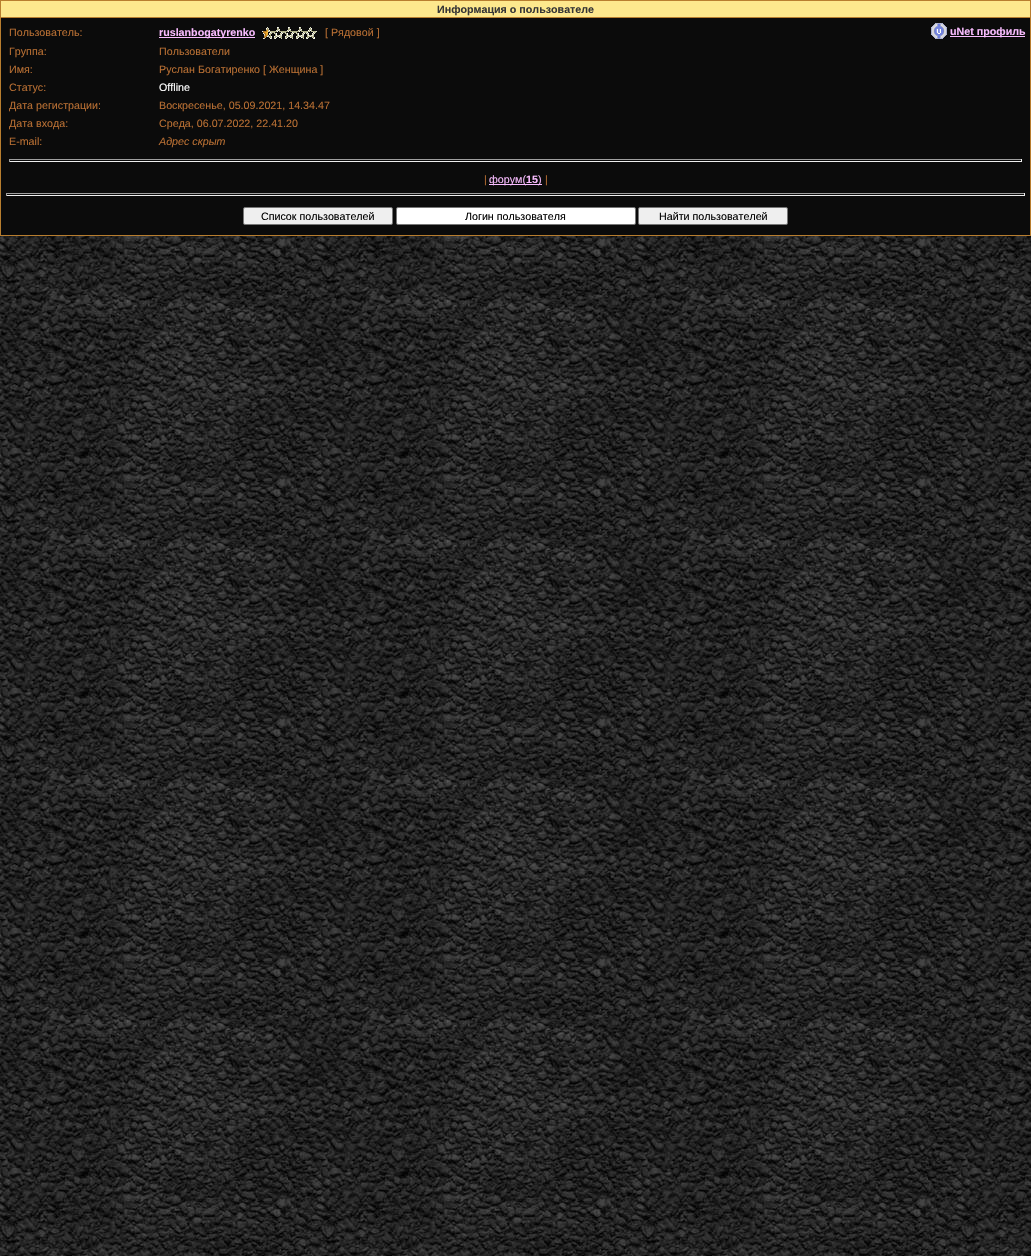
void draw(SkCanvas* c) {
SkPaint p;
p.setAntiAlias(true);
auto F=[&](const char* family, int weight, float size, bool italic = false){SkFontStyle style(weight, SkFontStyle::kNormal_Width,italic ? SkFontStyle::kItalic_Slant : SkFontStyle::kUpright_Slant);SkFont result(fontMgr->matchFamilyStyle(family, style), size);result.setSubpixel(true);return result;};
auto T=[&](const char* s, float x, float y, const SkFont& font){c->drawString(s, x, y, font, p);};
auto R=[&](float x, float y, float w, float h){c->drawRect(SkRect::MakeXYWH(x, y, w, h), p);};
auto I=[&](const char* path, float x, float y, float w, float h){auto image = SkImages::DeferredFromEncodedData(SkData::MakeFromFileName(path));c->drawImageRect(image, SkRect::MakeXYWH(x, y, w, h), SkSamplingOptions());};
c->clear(0xffffffff);
I("1.png",0,236,1031,1020);
p.setColor(0xffb87e2f);
R(0,0,1031,236);
p.setColor(0xfffde88d);
R(1,1,1029,16);
auto f1 = F("Liberation Sans",700,10.7);
p.setColor(0xff363636);
T("Информация о пользователе",437,13,f1);
p.setColor(0xff0b0b0b);
R(1,18,1029,217);
auto f2 = F("Liberation Sans",400,10.7);
p.setColor(0xffb76e32);
T("Пользователь:",9,36,f2);
p.setColor(0xfff9bcff);
R(159,37,96,1);
T("ruslanbogatyrenko",159,36,f1);
I("2.png",262,27,55,12);
p.setColor(0xffb76e32);
T("[ Рядовой ]",325,36,f2);
I("3.png",931,23,16,16);
p.setColor(0xfff9bcff);
R(950,36,75,1);
T("uNet профиль",950,35,f1);
p.setColor(0xffb76e32);
T("Группа:",9,55,f2);
T("Пользователи",159,55,f2);
T("Имя:",9,73,f2);
T("Руслан Богатиренко [ Женщина ]",159,73,f2);
T("Статус:",9,91,f2);
p.setColor(0xffffffff);
T("Offline",159,91,f2);
p.setColor(0xffb76e32);
T("Дата регистрации:",9,109,f2);
T("Воскресенье, 05.09.2021, 14.34.47",159,109,f2);
T("Дата входа:",9,127,f2);
T("Среда, 06.07.2022, 22.41.20",159,127,f2);
T("E-mail:",9,145,f2);
auto f3 = F("Liberation Sans",400,10.7,true);
T("Адрес скрыт",159,145,f3);
p.setColor(0xff9f9f9f);
R(9,159,1013,1);
p.setColor(0xffeeeeee);
R(1021,159,1,3);
R(9,161,1013,1);
p.setColor(0xff9f9f9f);
R(9,159,1,3);
p.setColor(0xffb76e32);
T("|",484,183,f2);
p.setColor(0xfff9bcff);
R(489,184,37,1);
T("форум(",489,183,f2);
R(526,184,16,1);
T("15",526,183,f1);
T(")",538,183,f2);
p.setColor(0xffb76e32);
T("|",545,183,f2);
p.setColor(0xff9f9f9f);
R(6,193,1019,1);
p.setColor(0xffeeeeee);
R(1024,193,1,3);
R(6,195,1019,1);
p.setColor(0xff9f9f9f);
R(6,193,1,3);
p.setColor(0xffefefef);
c->drawRoundRect(SkRect::MakeXYWH(243.5,207.5,149,17),1.5,1.5,p);
p.setStroke(true);
p.setStrokeWidth(1);
p.setColor(0xff767676);
c->drawRoundRect(SkRect::MakeXYWH(243.5,207.5,149,17),1.5,1.5,p);
p.setStroke(false);
p.setColor(0xff000000);
T("Список пользователей",261,220,f2);
p.setColor(0xffffffff);
c->drawRoundRect(SkRect::MakeXYWH(396.5,207.5,239,17),1.5,1.5,p);
p.setStroke(true);
p.setColor(0xff767676);
c->drawRoundRect(SkRect::MakeXYWH(396.5,207.5,239,17),1.5,1.5,p);
p.setStroke(false);
p.setColor(0xff000000);
T("Логин пользователя",465,220,f2);
p.setColor(0xffefefef);
c->drawRoundRect(SkRect::MakeXYWH(638.5,207.5,149,17),1.5,1.5,p);
p.setStroke(true);
p.setColor(0xff767676);
c->drawRoundRect(SkRect::MakeXYWH(638.5,207.5,149,17),1.5,1.5,p);
p.setStroke(false);
p.setColor(0xff000000);
T("Найти пользователей",659,220,f2);
}
